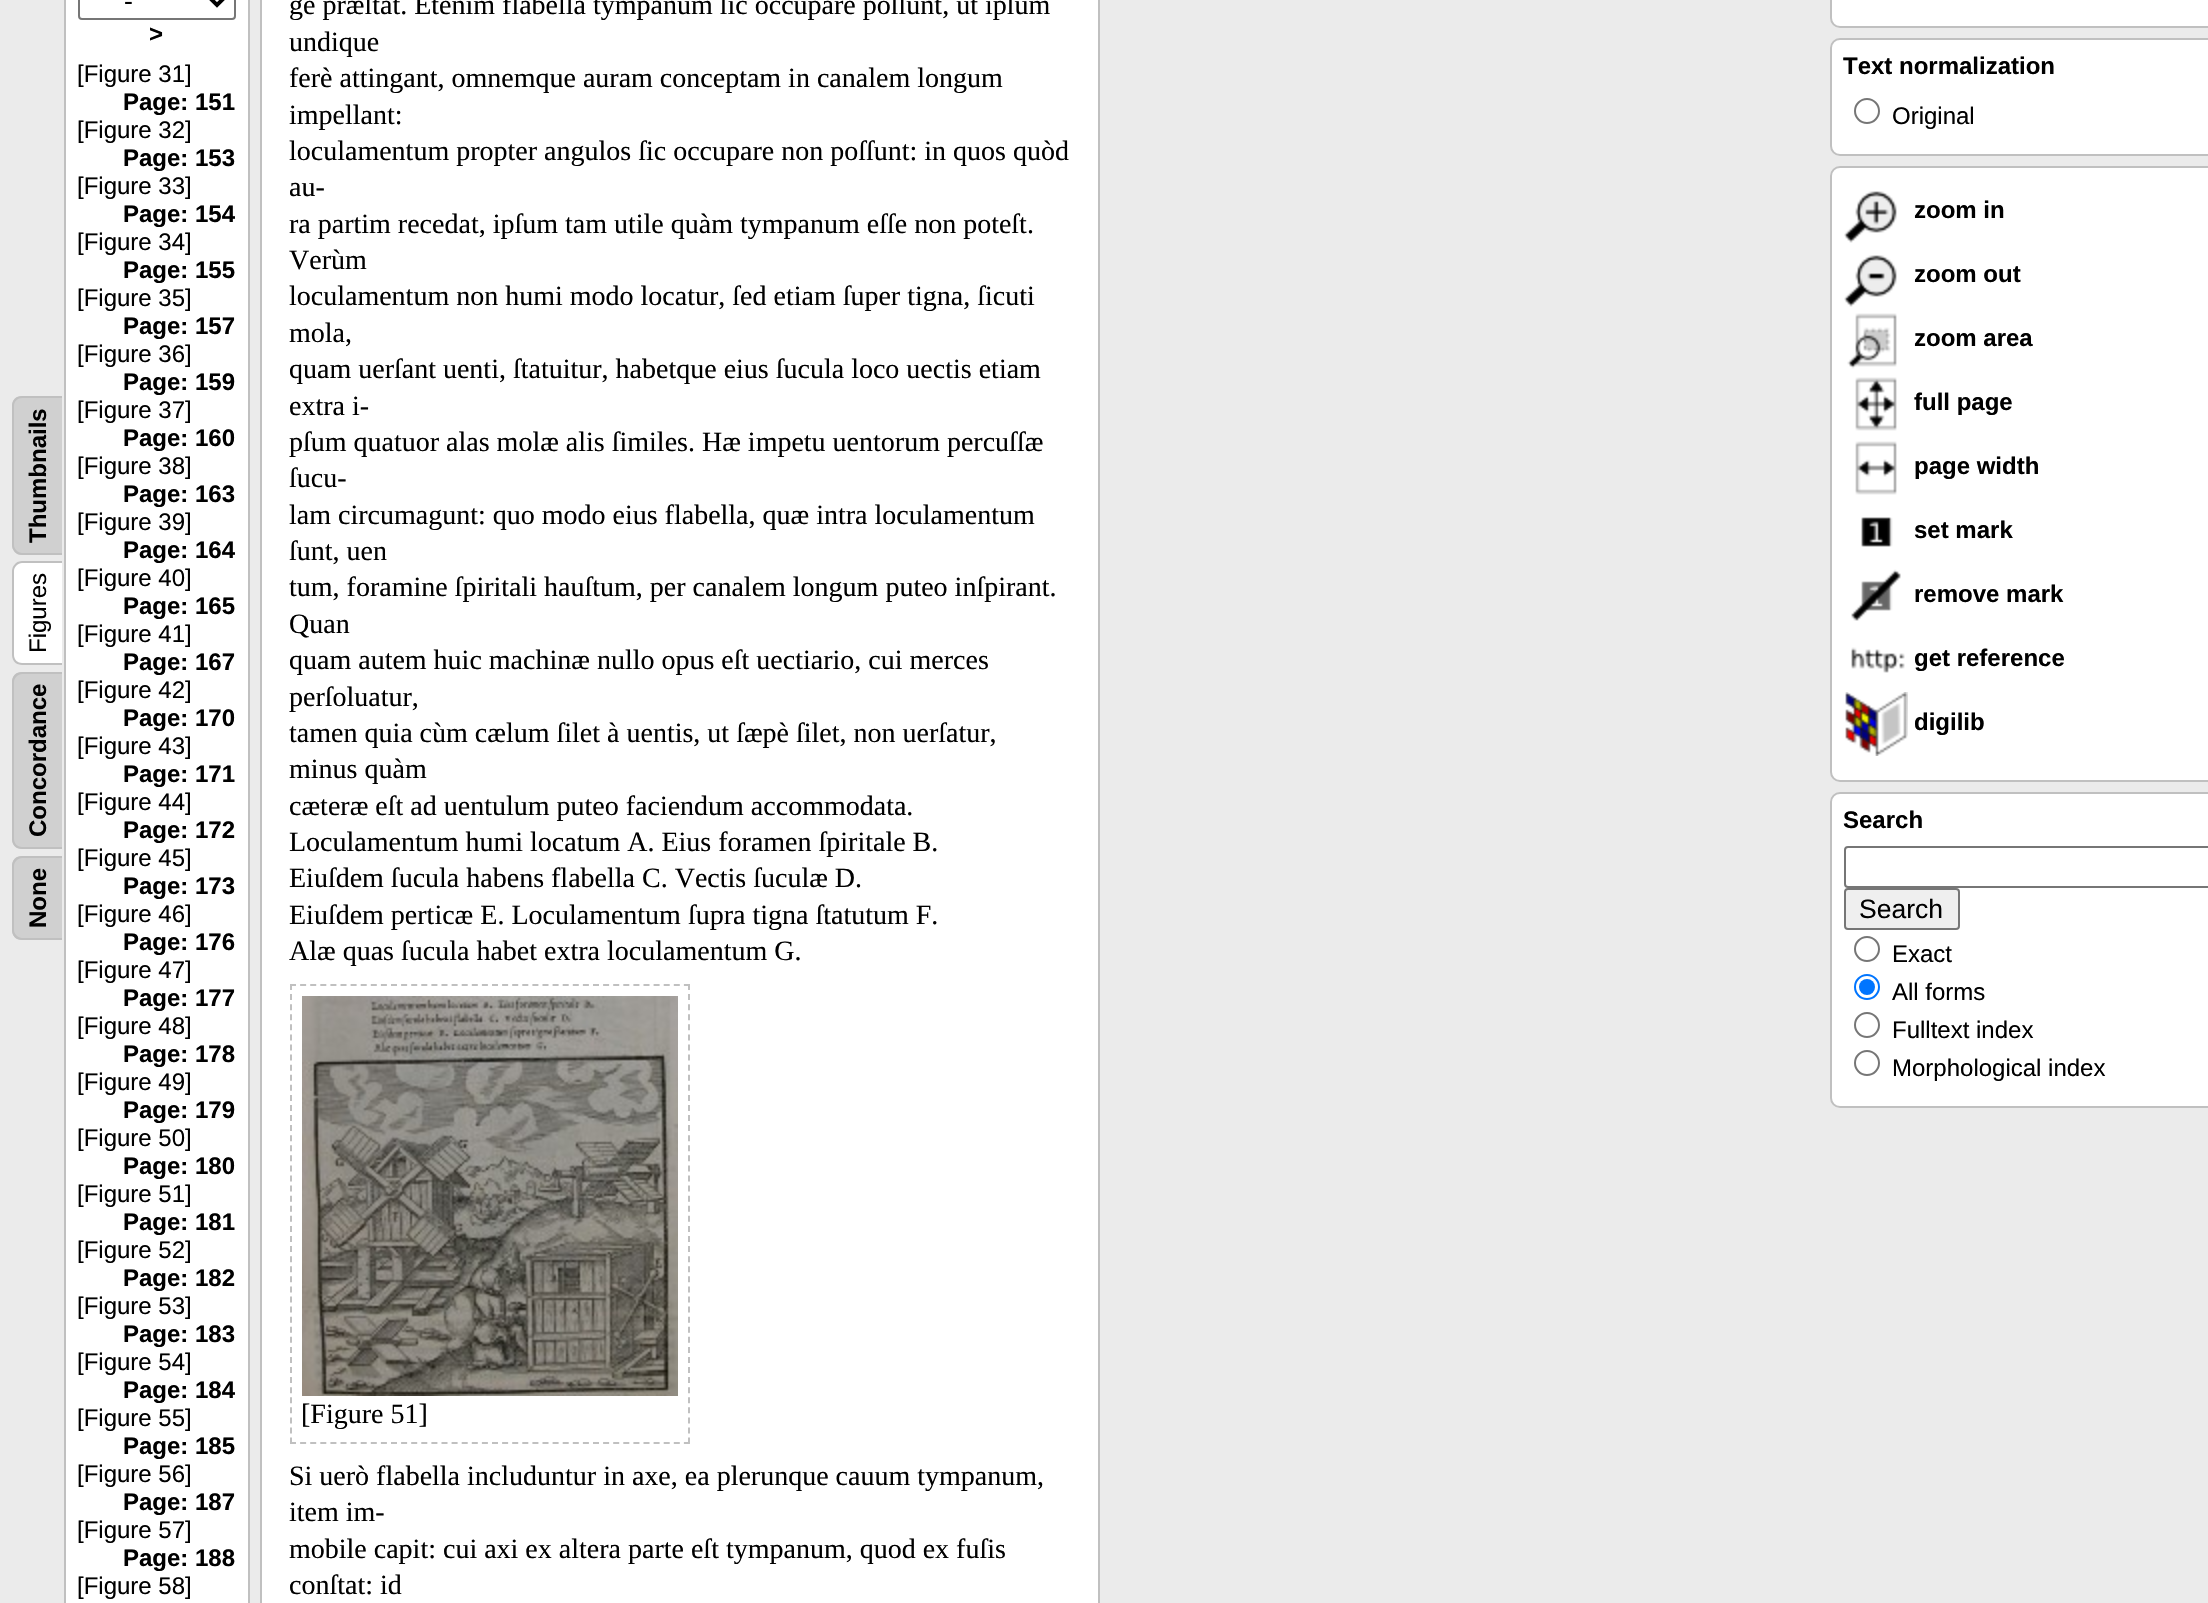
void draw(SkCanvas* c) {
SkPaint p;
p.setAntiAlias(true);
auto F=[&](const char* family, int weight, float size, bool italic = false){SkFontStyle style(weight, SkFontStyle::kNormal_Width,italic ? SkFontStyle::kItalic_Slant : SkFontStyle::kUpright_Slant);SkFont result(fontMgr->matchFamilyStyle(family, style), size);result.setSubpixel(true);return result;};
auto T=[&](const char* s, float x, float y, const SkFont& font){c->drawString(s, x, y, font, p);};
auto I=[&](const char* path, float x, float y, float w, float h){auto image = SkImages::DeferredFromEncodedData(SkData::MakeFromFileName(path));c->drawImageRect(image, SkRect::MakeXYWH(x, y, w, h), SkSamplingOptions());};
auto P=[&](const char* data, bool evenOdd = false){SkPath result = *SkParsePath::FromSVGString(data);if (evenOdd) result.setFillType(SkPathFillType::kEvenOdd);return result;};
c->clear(0xffebebeb);
p.setColor(0xffd0d0d0);
c->drawPath(P("M12 545v-139c0-6 4-10 10-10h40v159h-40c-6 0-10-5-10-10z"),p);
p.setColor(0xffc0c0c0);
c->drawPath(P("M12 545v-139c0-6 4-10 10-10h40v159h-40c-6 0-10-5-10-10zm2 0v-139c0-5 4-8 8-8h40v155h-40c-4 0-8-4-8-8z",true),p);
auto f1 = F("Liberation Sans",700,24);
p.setColor(0xff000000);
c->save();
c->rotate(-90,46,543);
T("Thumbnails",46,543,f1);
c->restore();
p.setColor(0xffffffff);
c->drawPath(P("M12 655v-84c0-5 4-10 10-10h40v104h-40c-6 0-10-4-10-10z"),p);
p.setColor(0xffc0c0c0);
c->drawPath(P("M12 655v-84c0-5 4-10 10-10h40v104h-40c-6 0-10-4-10-10zm2 0v-84c0-4 4-8 8-8h40v100h-40c-4 0-8-3-8-8z",true),p);
auto f2 = F("Liberation Sans",400,24);
p.setColor(0xff000000);
c->save();
c->rotate(-90,46,653);
T("Figures",46,653,f2);
c->restore();
p.setColor(0xffd0d0d0);
c->drawPath(P("M12 839v-157c0-6 4-10 10-10h40v177h-40c-6 0-10-4-10-10z"),p);
p.setColor(0xffc0c0c0);
c->drawPath(P("M12 839v-157c0-6 4-10 10-10h40v177h-40c-6 0-10-4-10-10zm2 0v-157c0-4 4-8 8-8h40v173h-40c-4 0-8-3-8-8z",true),p);
p.setColor(0xff000000);
c->save();
c->rotate(-90,46,837);
T("Concordance",46,837,f1);
c->restore();
p.setColor(0xffd0d0d0);
c->drawPath(P("M12 930v-64c0-6 4-10 10-10h40v84h-40c-6 0-10-4-10-10z"),p);
p.setColor(0xffc0c0c0);
c->drawPath(P("M12 930v-64c0-6 4-10 10-10h40v84h-40c-6 0-10-4-10-10zm2 0v-64c0-4 4-8 8-8h40v80h-40c-4 0-8-4-8-8z",true),p);
p.setColor(0xff000000);
c->save();
c->rotate(-90,46,928);
T("None",46,928,f1);
c->restore();
p.setColor(0xffffffff);
c->drawRect(SkRect::MakeXYWH(65,-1,184,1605),p);
p.setStroke(true);
p.setStrokeWidth(2);
p.setColor(0xffc0c0c0);
c->drawRect(SkRect::MakeXYWH(65,-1,184,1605),p);
p.setColor(0xff767676);
c->drawRoundRect(SkRect::MakeXYWH(79,-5,156,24),3,3,p);
p.setStrokeWidth(4);
p.setColor(0xff000000);
c->drawPath(P("M209-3l8 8l8-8"),p);
auto f3 = F("Liberation Sans",400,26.5);
p.setStroke(false);
T("-",124,10,f3);
T(">",149,42,f1);
T("[Figure 31]",77,82,f2);
T("Page: 151",123,110,f1);
T("[Figure 32]",77,138,f2);
T("Page: 153",123,166,f1);
T("[Figure 33]",77,194,f2);
T("Page: 154",123,222,f1);
T("[Figure 34]",77,250,f2);
T("Page: 155",123,278,f1);
T("[Figure 35]",77,306,f2);
T("Page: 157",123,334,f1);
T("[Figure 36]",77,362,f2);
T("Page: 159",123,390,f1);
T("[Figure 37]",77,418,f2);
T("Page: 160",123,446,f1);
T("[Figure 38]",77,474,f2);
T("Page: 163",123,502,f1);
T("[Figure 39]",77,530,f2);
T("Page: 164",123,558,f1);
T("[Figure 40]",77,586,f2);
T("Page: 165",123,614,f1);
T("[Figure 41]",77,642,f2);
T("Page: 167",123,670,f1);
T("[Figure 42]",77,698,f2);
T("Page: 170",123,726,f1);
T("[Figure 43]",77,754,f2);
T("Page: 171",123,782,f1);
T("[Figure 44]",77,810,f2);
T("Page: 172",123,838,f1);
T("[Figure 45]",77,866,f2);
T("Page: 173",123,894,f1);
T("[Figure 46]",77,922,f2);
T("Page: 176",123,950,f1);
T("[Figure 47]",77,978,f2);
T("Page: 177",123,1006,f1);
T("[Figure 48]",77,1034,f2);
T("Page: 178",123,1062,f1);
T("[Figure 49]",77,1090,f2);
T("Page: 179",123,1118,f1);
T("[Figure 50]",77,1146,f2);
T("Page: 180",123,1174,f1);
T("[Figure 51]",77,1202,f2);
T("Page: 181",123,1230,f1);
T("[Figure 52]",77,1258,f2);
T("Page: 182",123,1286,f1);
T("[Figure 53]",77,1314,f2);
T("Page: 183",123,1342,f1);
T("[Figure 54]",77,1370,f2);
T("Page: 184",123,1398,f1);
T("[Figure 55]",77,1426,f2);
T("Page: 185",123,1454,f1);
T("[Figure 56]",77,1482,f2);
T("Page: 187",123,1510,f1);
T("[Figure 57]",77,1538,f2);
T("Page: 188",123,1566,f1);
T("[Figure 58]",77,1594,f2);
p.setColor(0xffffffff);
c->drawRect(SkRect::MakeXYWH(261,-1,838,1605),p);
p.setStroke(true);
p.setStrokeWidth(2);
p.setColor(0xffc0c0c0);
c->drawRect(SkRect::MakeXYWH(261,-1,838,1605),p);
auto f4 = F("Liberation Serif",400,28);
p.setStroke(false);
p.setColor(0xff000000);
T("gè præſtat. Etenim flabella tympanum ſic occupare poſſunt, ut ipſum",289,14,f4);
T("undique",289,51,f4);
T("ferè attingant, omnemque auram conceptam in canalem longum",289,87,f4);
T("impellant:",289,124,f4);
T("loculamentum propter angulos ſic occupare non poſſunt: in quos quòd",289,160,f4);
T("au-",289,196,f4);
T("ra partim recedat, ipſum tam utile quàm tympanum eſſe non poteſt.",289,233,f4);
T("Verùm",289,269,f4);
T("loculamentum non humi modo locatur, ſed etiam ſuper tigna, ſicuti",289,305,f4);
T("mola,",289,342,f4);
T("quam uerſant uenti, ſtatuitur, habetque eius ſucula loco uectis etiam",289,378,f4);
T("extra i-",289,415,f4);
T("pſum quatuor alas molæ alis ſimiles. Hæ impetu uentorum percuſſæ",289,451,f4);
T("ſucu-",289,487,f4);
T("lam circumagunt: quo modo eius flabella, quæ intra loculamentum",289,524,f4);
T("ſunt, uen",289,560,f4);
T("tum, foramine ſpiritali hauſtum, per canalem longum puteo inſpirant.",289,596,f4);
T("Quan",289,633,f4);
T("quam autem huic machinæ nullo opus eſt uectiario, cui merces",289,669,f4);
T("perſoluatur,",289,706,f4);
T("tamen quia cùm cælum ſilet à uentis, ut ſæpè ſilet, non uerſatur,",289,742,f4);
T("minus quàm",289,778,f4);
T("cæteræ eſt ad uentulum puteo faciendum accommodata.",289,815,f4);
T("Loculamentum humi locatum A. Eius foramen ſpiritale B.",289,851,f4);
T("Eiuſdem ſucula habens flabella C. Vectis ſuculæ D.",289,887,f4);
T("Eiuſdem perticæ E. Loculamentum ſupra tigna ſtatutum F.",289,924,f4);
T("Alæ quas ſucula habet extra loculamentum G.",289,960,f4);
p.setStroke(true);
p.setColor(0xffc0c0c0);
p.setPathEffect(SkDashPathEffect::Make({{6,4.1f}}, 0));
c->drawPath(P("M290 985h400"),p);
p.setPathEffect(nullptr);
p.setPathEffect(SkDashPathEffect::Make({{6,4.08f}}, 0));
c->drawPath(P("M689 984v460"),p);
p.setPathEffect(nullptr);
p.setPathEffect(SkDashPathEffect::Make({{6,4.1f}}, 0));
c->drawPath(P("M290 1443h400"),p);
p.setPathEffect(nullptr);
p.setPathEffect(SkDashPathEffect::Make({{6,4.08f}}, 0));
c->drawPath(P("M291 984v460"),p);
p.setPathEffect(nullptr);
I("1.png",302,996,376,400);
p.setStroke(false);
p.setColor(0xff000000);
T("[Figure 51]",301,1423,f4);
T("Si uerò flabella includuntur in axe, ea plerunque cauum tympanum,",289,1485,f4);
T("item im-",289,1521,f4);
T("mobile capit: cui axi ex altera parte eſt tympanum, quod ex fuſis",289,1558,f4);
T("conſtat: id",289,1594,f4);
p.setColor(0xffffffff);
c->drawRoundRect(SkRect::MakeXYWH(1831,-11,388,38),9,9,p);
p.setStroke(true);
p.setColor(0xffc0c0c0);
c->drawRoundRect(SkRect::MakeXYWH(1831,-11,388,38),9,9,p);
p.setStroke(false);
p.setColor(0xffffffff);
c->drawRoundRect(SkRect::MakeXYWH(1831,39,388,116),9,9,p);
p.setStroke(true);
p.setColor(0xffc0c0c0);
c->drawRoundRect(SkRect::MakeXYWH(1831,39,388,116),9,9,p);
p.setStroke(false);
p.setColor(0xff000000);
T("Text normalization",1843,74,f1);
p.setStroke(true);
p.setColor(0xff767676);
c->drawCircle(1867,111,12,p);
p.setStroke(false);
p.setColor(0xff000000);
T("Original",1892,124,f2);
p.setColor(0xffffffff);
c->drawRoundRect(SkRect::MakeXYWH(1831,167,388,614),9,9,p);
p.setStroke(true);
p.setColor(0xffc0c0c0);
c->drawRoundRect(SkRect::MakeXYWH(1831,167,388,614),9,9,p);
I("2.png",1844,191,53,52);
p.setStroke(false);
p.setColor(0xff000000);
T("zoom in",1914,218,f1);
I("3.png",1844,255,53,52);
T("zoom out",1914,282,f1);
I("4.png",1847,313,50,56);
T("zoom area",1914,346,f1);
I("5.png",1855,377,42,54);
T("full page",1914,410,f1);
I("6.png",1855,441,42,54);
T("page width",1914,474,f1);
I("7.png",1861,517,32,30);
T("set mark",1914,538,f1);
I("8.png",1851,569,50,52);
T("remove mark",1914,602,f1);
I("9.png",1851,647,54,26);
T("get reference",1914,666,f1);
I("10.png",1845,692,63,64);
T("digilib",1914,730,f1);
p.setColor(0xffffffff);
c->drawRoundRect(SkRect::MakeXYWH(1831,793,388,314),9,9,p);
p.setStroke(true);
p.setColor(0xffc0c0c0);
c->drawRoundRect(SkRect::MakeXYWH(1831,793,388,314),9,9,p);
p.setStroke(false);
p.setColor(0xff000000);
T("Search",1843,828,f1);
p.setStroke(true);
p.setColor(0xff767676);
c->drawRoundRect(SkRect::MakeXYWH(1845,847,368,40),3,3,p);
p.setStroke(false);
p.setColor(0xffefefef);
c->drawRoundRect(SkRect::MakeXYWH(1845,889,114,40),3,3,p);
p.setStroke(true);
p.setColor(0xff767676);
c->drawRoundRect(SkRect::MakeXYWH(1845,889,114,40),3,3,p);
p.setStroke(false);
p.setColor(0xff000000);
T("Search",1859,918,f3);
p.setStroke(true);
p.setColor(0xff767676);
c->drawCircle(1867,949,12,p);
p.setStroke(false);
p.setColor(0xff000000);
T("Exact",1892,962,f2);
p.setStroke(true);
p.setColor(0xff0075ff);
c->drawCircle(1867,987,12,p);
p.setStroke(false);
c->drawCircle(1867,987,8,p);
p.setColor(0xff000000);
T("All forms",1892,1000,f2);
p.setStroke(true);
p.setColor(0xff767676);
c->drawCircle(1867,1025,12,p);
p.setStroke(false);
p.setColor(0xff000000);
T("Fulltext index",1892,1038,f2);
p.setStroke(true);
p.setColor(0xff767676);
c->drawCircle(1867,1063,12,p);
p.setStroke(false);
p.setColor(0xff000000);
T("Morphological index",1892,1076,f2);
}
